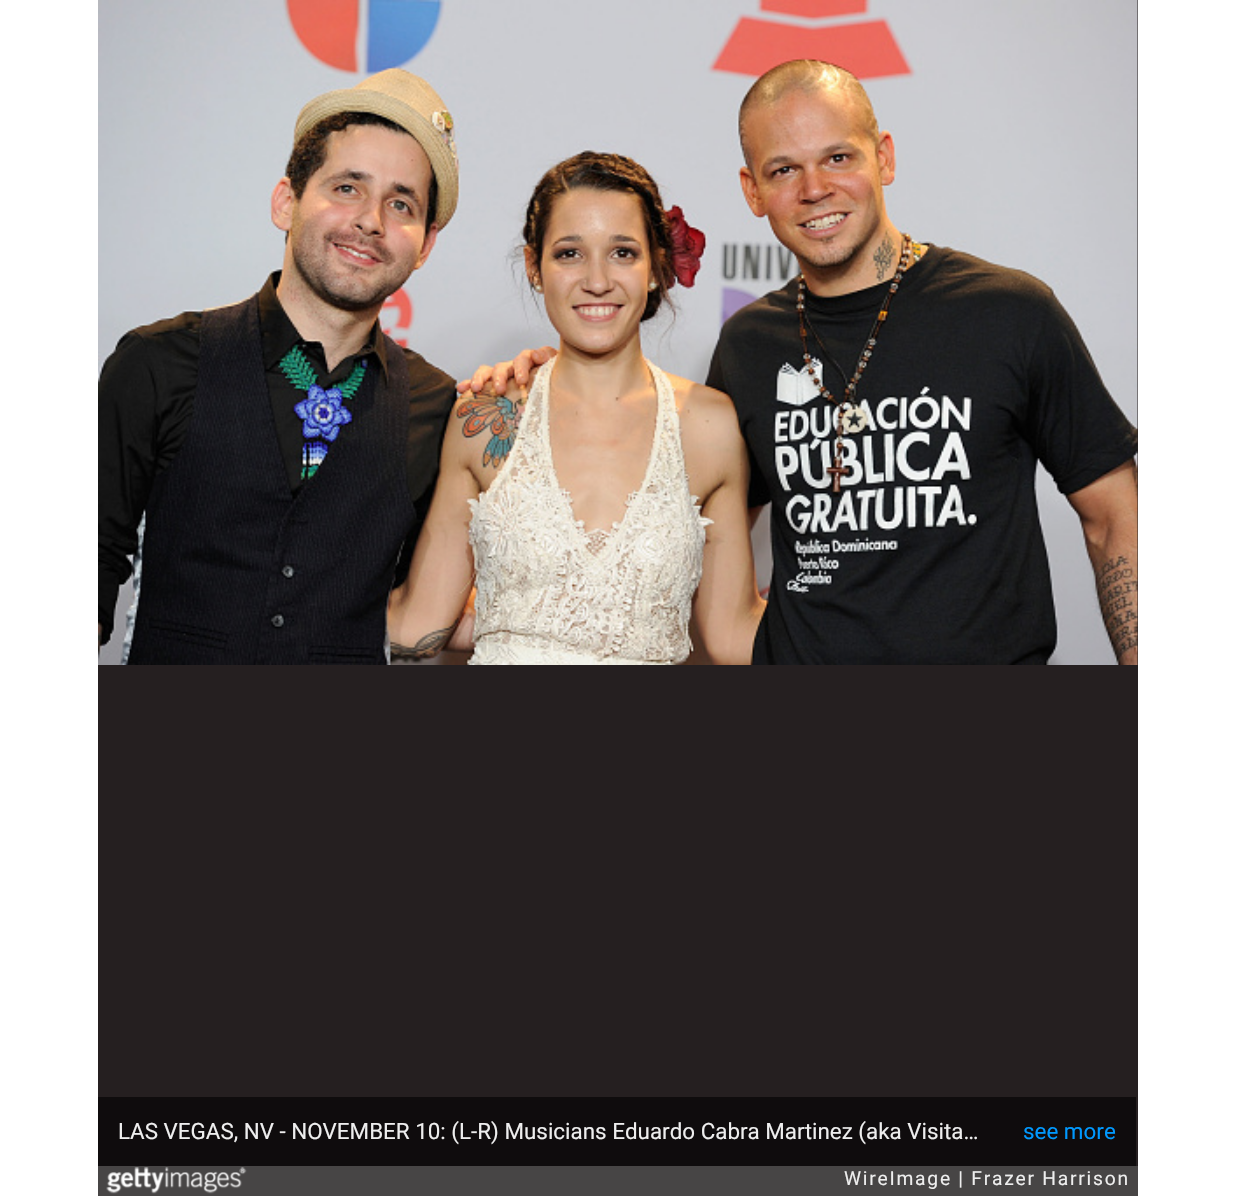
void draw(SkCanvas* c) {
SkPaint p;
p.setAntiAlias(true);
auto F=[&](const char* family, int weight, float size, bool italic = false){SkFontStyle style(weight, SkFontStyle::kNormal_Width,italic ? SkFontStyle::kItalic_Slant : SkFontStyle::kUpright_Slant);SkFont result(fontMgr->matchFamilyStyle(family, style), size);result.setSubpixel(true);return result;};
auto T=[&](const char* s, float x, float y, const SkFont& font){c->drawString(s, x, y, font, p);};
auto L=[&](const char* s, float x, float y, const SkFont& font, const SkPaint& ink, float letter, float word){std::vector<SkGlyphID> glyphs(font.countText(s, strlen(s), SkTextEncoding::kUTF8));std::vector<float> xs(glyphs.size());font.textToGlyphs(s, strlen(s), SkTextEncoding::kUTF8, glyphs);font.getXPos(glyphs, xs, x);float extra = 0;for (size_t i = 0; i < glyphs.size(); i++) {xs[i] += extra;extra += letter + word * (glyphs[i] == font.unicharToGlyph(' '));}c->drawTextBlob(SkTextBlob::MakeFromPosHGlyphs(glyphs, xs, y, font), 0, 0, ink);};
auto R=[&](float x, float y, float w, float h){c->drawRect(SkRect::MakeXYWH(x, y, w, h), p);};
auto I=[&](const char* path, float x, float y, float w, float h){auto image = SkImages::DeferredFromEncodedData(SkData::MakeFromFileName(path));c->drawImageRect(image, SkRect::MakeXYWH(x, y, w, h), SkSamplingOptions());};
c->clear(0xffffffff);
p.setColor(0xff251f20);
R(98,0,1040,1166);
I("1.png",98,0,1040,665);
p.setColor(0xff0f0c0d);
R(98,1097,1038,69);
auto f1 = F("Roboto",400,22.4);
p.setColor(0xffeeeeee);
T("LAS VEGAS, NV - NOVEMBER 10: (L-R) Musicians Eduardo Cabra Martinez (aka Visita…",118,1139,f1);
p.setColor(0xff0099ff);
T("see more",1023,1139,f1);
p.setColor(0xff474545);
R(98,1166,1040,30);
I("2.png",106,1167,141,27);
auto f2 = F("Roboto",400,19.25);
p.setColor(0xffeeeeee);
L("WireImage | Frazer Harrison",844,1185,f2,p,1.75,0);
}
